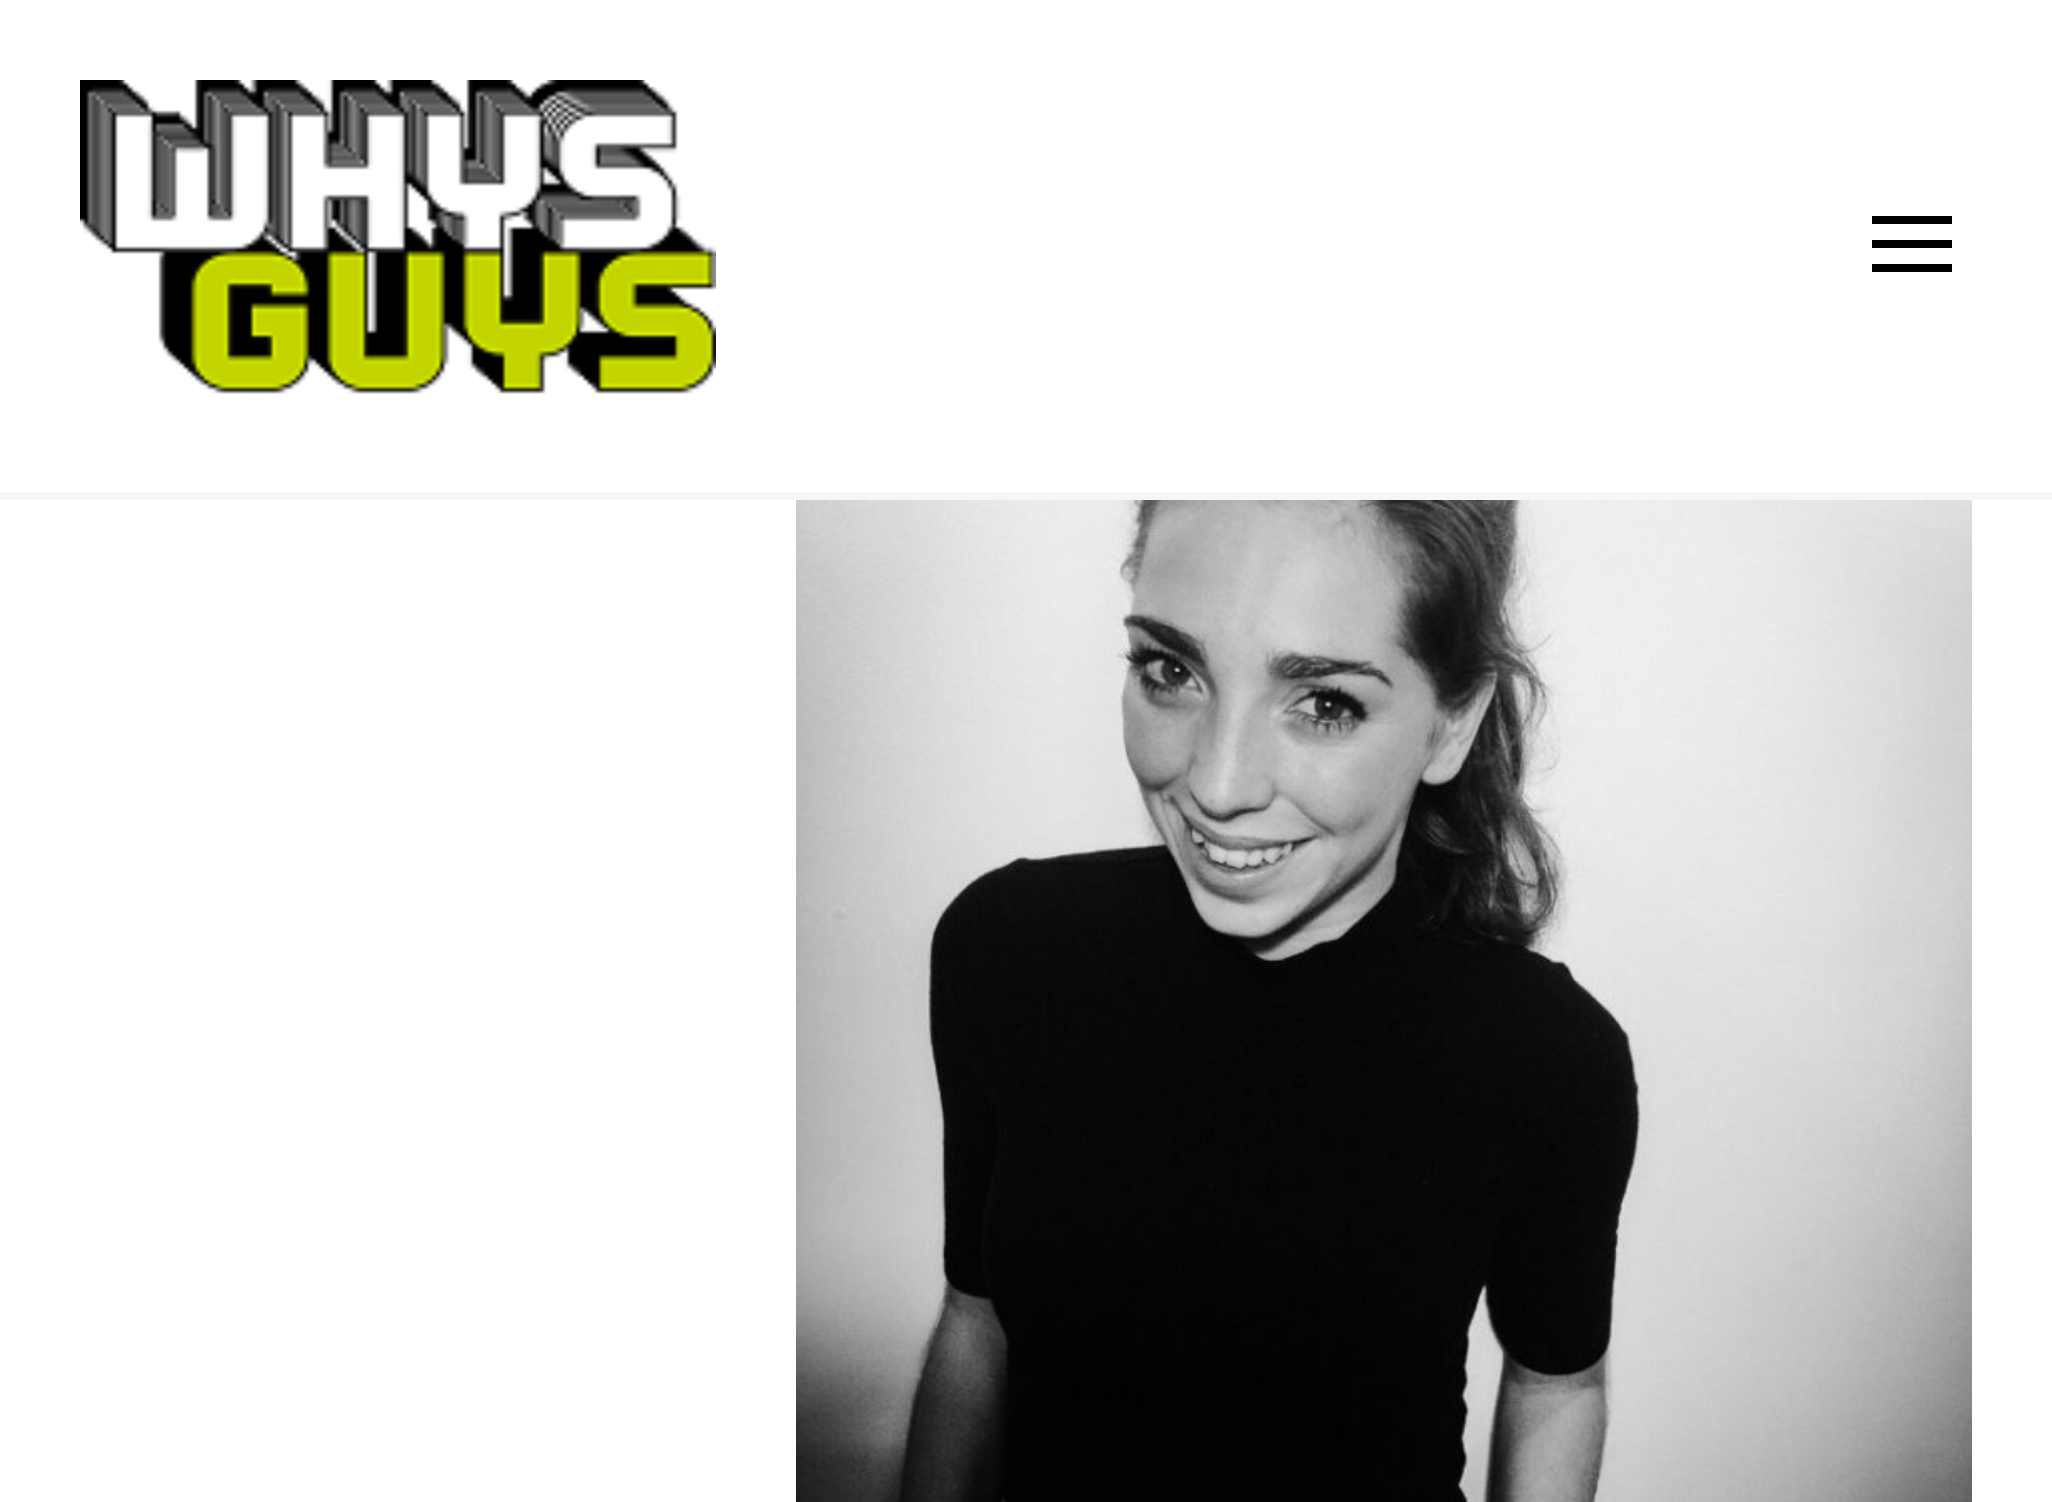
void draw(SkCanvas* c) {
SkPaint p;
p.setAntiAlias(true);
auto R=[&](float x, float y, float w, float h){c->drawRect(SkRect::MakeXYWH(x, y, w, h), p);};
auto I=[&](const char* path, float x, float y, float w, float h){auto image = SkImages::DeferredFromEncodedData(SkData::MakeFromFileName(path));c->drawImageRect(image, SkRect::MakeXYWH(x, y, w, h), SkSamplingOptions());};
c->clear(0xffffffff);
p.setColor(0xfff7f5f5);
R(0,492,2052,8);
I("1.png",80,80,636,314);
p.setColor(0xff000000);
R(1872,240,80,8);
R(1872,216,80,8);
R(1872,264,80,8);
I("2.png",796,500,1176,1002);
}
